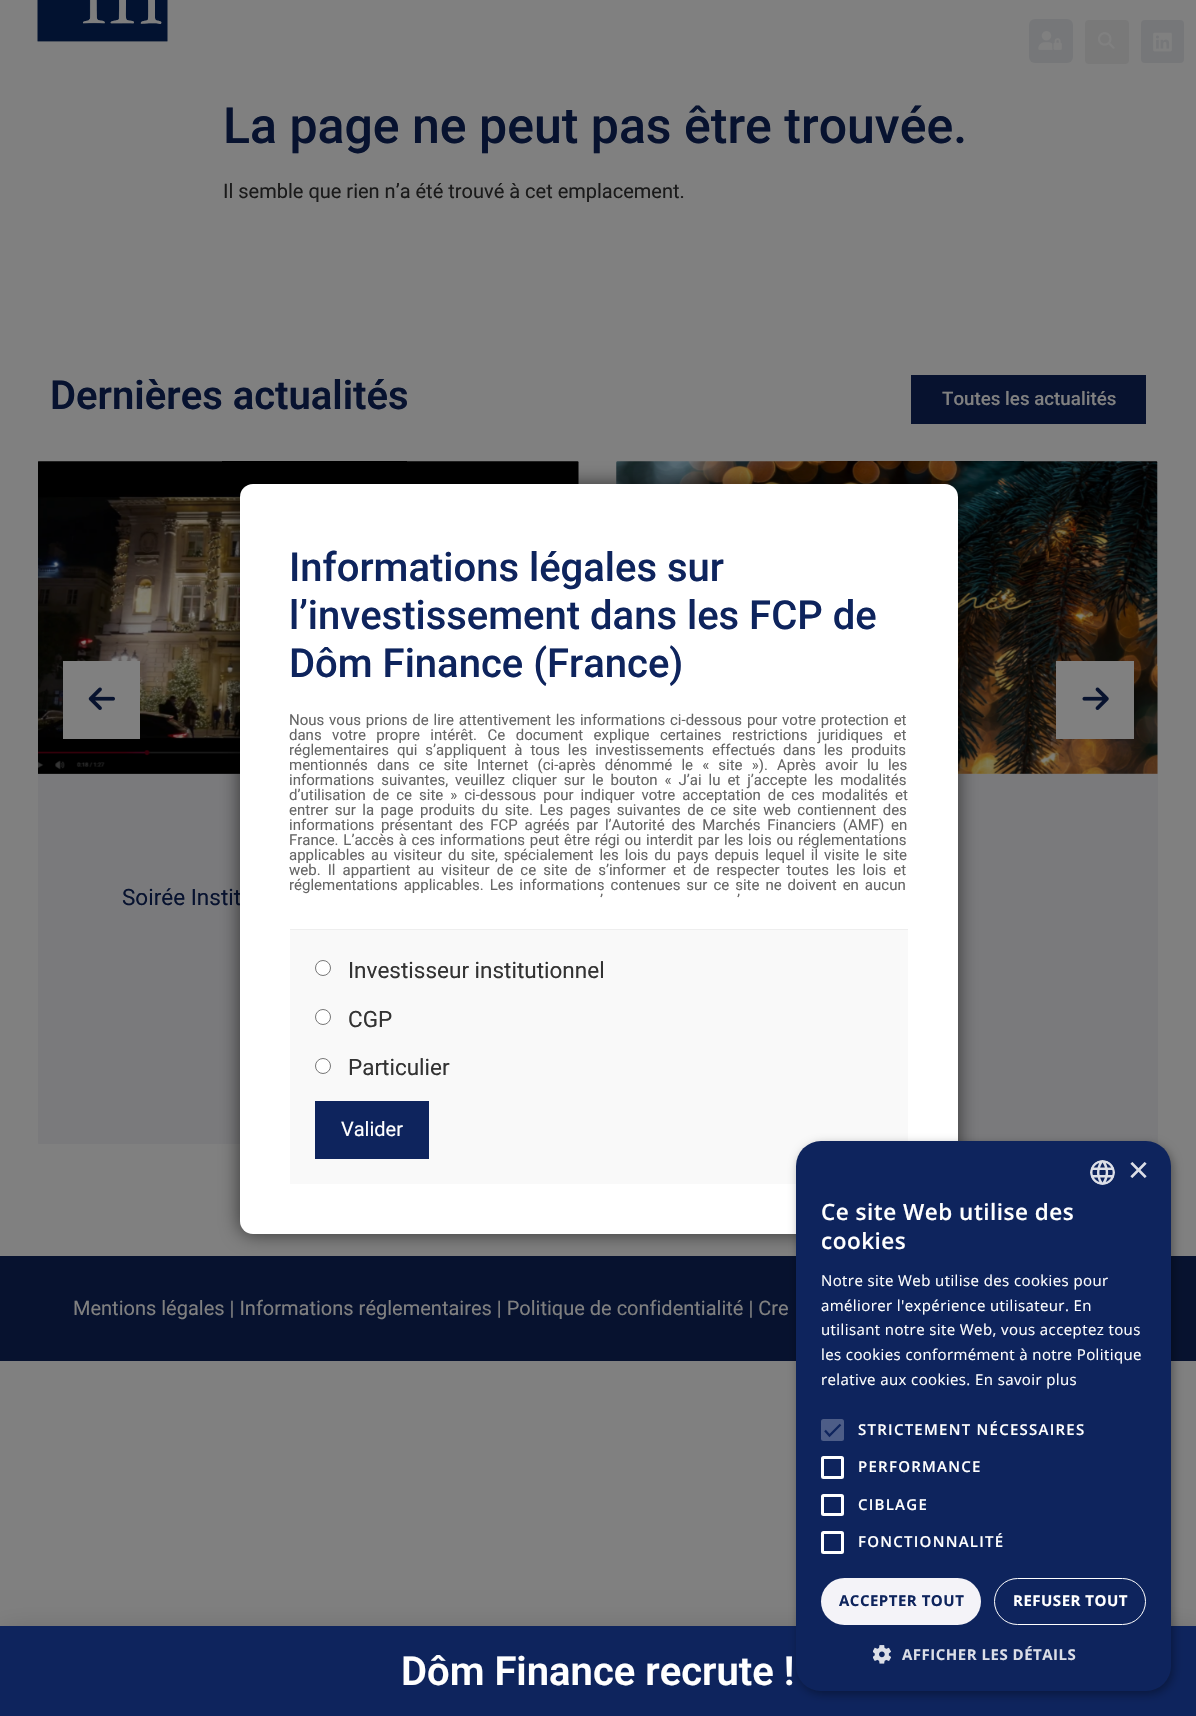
void draw(SkCanvas* c) {
SkPaint p;
p.setAntiAlias(true);
auto F=[&](const char* family, int weight, float size, bool italic = false){SkFontStyle style(weight, SkFontStyle::kNormal_Width,italic ? SkFontStyle::kItalic_Slant : SkFontStyle::kUpright_Slant);SkFont result(fontMgr->matchFamilyStyle(family, style), size);result.setSubpixel(true);return result;};
auto T=[&](const char* s, float x, float y, const SkFont& font){c->drawString(s, x, y, font, p);};
auto L=[&](const char* s, float x, float y, const SkFont& font, const SkPaint& ink, float letter, float word){std::vector<SkGlyphID> glyphs(font.countText(s, strlen(s), SkTextEncoding::kUTF8));std::vector<float> xs(glyphs.size());font.textToGlyphs(s, strlen(s), SkTextEncoding::kUTF8, glyphs);font.getXPos(glyphs, xs, x);float extra = 0;for (size_t i = 0; i < glyphs.size(); i++) {xs[i] += extra;extra += letter + word * (glyphs[i] == font.unicharToGlyph(' '));}c->drawTextBlob(SkTextBlob::MakeFromPosHGlyphs(glyphs, xs, y, font), 0, 0, ink);};
auto R=[&](float x, float y, float w, float h){c->drawRect(SkRect::MakeXYWH(x, y, w, h), p);};
auto Q=[&](float x, float y, float w, float h, float radius){c->drawRoundRect(SkRect::MakeXYWH(x, y, w, h), radius, radius, p);};
auto I=[&](const char* path, float x, float y, float w, float h){auto image = SkImages::DeferredFromEncodedData(SkData::MakeFromFileName(path));c->drawImageRect(image, SkRect::MakeXYWH(x, y, w, h), SkSamplingOptions());};
auto P=[&](const char* data, bool evenOdd = false){SkPath result = *SkParsePath::FromSVGString(data);if (evenOdd) result.setFillType(SkPathFillType::kEvenOdd);return result;};
c->clear(0xff808080);
I("1.png",37,0,131,42);
p.setColor(0xff767779);
Q(1029,19,44,44,6);
I("2.png",1038,31,24,19);
p.setColor(0xff797979);
Q(1085,20,44,44,4);
I("3.png",1098,32,17,17);
p.setColor(0xff767779);
Q(1141,20,43,43,4);
I("4.png",1153,32,19,20);
auto f1 = F("Roboto",500,50);
p.setColor(0xff07122f);
T("La page ne peut pas être trouvée.",223,143,f1);
auto f2 = F("Roboto",400,20);
p.setColor(0xff1a1a1a);
T("Il semble que rien n’a été trouvé à cet emplacement.",223,198,f2);
auto f3 = F("Roboto",600,40);
p.setColor(0xff07122f);
T("Dernières actualités",50,409,f3);
R(911,375,235,49);
auto f4 = F("Roboto",500,18.75);
p.setColor(0xff808080);
T("Toutes les actualités",942,405,f4);
I("7.png",38,461,541,313);
R(63,661,77,78);
I("5.png",88,687,27,23);
I("8.png",616,461,542,313);
R(1056,661,78,78);
I("6.png",1082,687,27,23);
p.setColor(0xff7a7a7c);
c->drawPath(P("M38 774h541v369c0 .5-.5 1-1 1h-539c-.5 0-1-.5-1-1z"),p);
auto f5 = F("Roboto",400,22.5);
p.setColor(0xff07122f);
T("Soirée Instit",122,905,f5);
p.setColor(0xff7a7a7c);
c->drawPath(P("M616 774h542v369c0 .5-.5 1-1 1h-540c-.5 0-1-.5-1-1z"),p);
p.setColor(0xff07122f);
R(0,1256,1196,105);
p.setColor(0xff808080);
T("Mentions légales | Informations réglementaires | Politique de confidentialité | Cre",73,1315,f2);
p.setColor(0x99000000);
p.setMaskFilter(SkMaskFilter::MakeBlur(kNormal_SkBlurStyle, 9.5));
c->drawRoundRect(SkRect::MakeXYWH(240,484,718,750),13,13,p);
p.setMaskFilter(nullptr);
p.setColor(0xffffffff);
Q(240,484,718,750,13);
auto f6 = F("Roboto",500,40);
p.setColor(0xff0e245d);
T("Informations légales sur",289,581,f6);
T("l’investissement dans les FCP de",289,629,f6);
T("Dôm Finance (France)",289,677,f6);
auto f7 = F("Roboto",400,15);
p.setColor(0xff666666);
L("Nous vous prions de lire attentivement les informations ci-dessous pour votre protection et",289,725,f7,p,0,1.1);
L("dans votre propre intérêt. Ce document explique certaines restrictions juridiques et",289,740,f7,p,0,6.75);
L("réglementaires qui s’appliquent à tous les investissements effectués dans les produits",289,755,f7,p,0,4.25);
L("mentionnés dans ce site Internet (ci-après dénommé le « site »). Après avoir lu les",289,770,f7,p,0,5.4);
L("informations suivantes, veuillez cliquer sur le bouton « J’ai lu et j’accepte les modalités",289,785,f7,p,0,3.25);
L("d’utilisation de ce site » ci-dessous pour indiquer votre acceptation de ces modalités et",289,800,f7,p,0,3.25);
L("entrer sur la page produits du site. Les pages suivantes de ce site web contiennent des",289,815,f7,p,0,2.75);
L("informations présentant des FCP agréés par l’Autorité des Marchés Financiers (AMF) en",289,830,f7,p,0,3);
L("France. L’accès à ces informations peut être régi ou interdit par les lois ou réglementations",289,845,f7,p,0,1);
L("applicables au visiteur du site, spécialement les lois du pays depuis lequel il visite le site",289,860,f7,p,0,2.25);
L("web. Il appartient au visiteur de ce site de s’informer et de respecter toutes les lois et",289,875,f7,p,0,3.4);
L("réglementations applicables. Les informations contenues sur ce site ne doivent en aucun",289,890,f7,p,0,2.25);
L("’",600,905,f7,p,0,1);
L("’",737,905,f7,p,0,1);
p.setColor(0xfff9f9f9);
R(290,930,618,254);
p.setColor(0xffeeeeee);
R(290,929,618,1);
p.setColor(0xffffffff);
c->drawCircle(323,968,7.5,p);
p.setStroke(true);
p.setStrokeWidth(1);
p.setColor(0xff767676);
c->drawCircle(323,968,7.5,p);
p.setStroke(false);
p.setColor(0xff333333);
T("Investisseur institutionnel",348,978,f5);
p.setColor(0xffffffff);
c->drawCircle(323,1017,7.5,p);
p.setStroke(true);
p.setColor(0xff767676);
c->drawCircle(323,1017,7.5,p);
p.setStroke(false);
p.setColor(0xff333333);
T("CGP",348,1027,f5);
p.setColor(0xffffffff);
c->drawCircle(323,1066,7.5,p);
p.setStroke(true);
p.setColor(0xff767676);
c->drawCircle(323,1066,7.5,p);
p.setStroke(false);
p.setColor(0xff333333);
T("Particulier",348,1075,f5);
p.setColor(0xff0e245d);
R(315,1101,114,58);
p.setColor(0xffffffff);
T("Valider",341,1136,f2);
p.setColor(0x33000000);
p.setMaskFilter(SkMaskFilter::MakeBlur(kNormal_SkBlurStyle, 14.5));
c->drawRect(SkRect::MakeXYWH(-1,1633,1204,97),p);
p.setMaskFilter(nullptr);
p.setColor(0xff0e245d);
R(0,1626,1196,90);
p.setColor(0x59000000);
p.setMaskFilter(SkMaskFilter::MakeBlur(kNormal_SkBlurStyle, 5));
c->drawRoundRect(SkRect::MakeXYWH(798,1144,375,550),25,25,p);
p.setMaskFilter(nullptr);
p.setColor(0xff0e245d);
Q(796,1141,375,550,25);
I("9.png",1090,1160,25,25);
auto f8 = F("Liberation Sans",400,36);
p.setColor(0xffdbdee7);
T("×",1128,1182,f8);
auto f9 = F("Open Sans",600,22.5);
p.setColor(0xffffffff);
L("Ce site Web utilise des",821,1220,f9,p,.5,0);
L("cookies",821,1249,f9,p,.5,0);
auto f10 = F("Open Sans",400,15);
L("Notre site Web utilise des cookies pour",821,1286,f10,p,.4,0);
L("améliorer l'expérience utilisateur. En",821,1311,f10,p,.4,0);
L("utilisant notre site Web, vous acceptez tous",821,1335,f10,p,.4,0);
L("les cookies conformément à notre Politique",821,1360,f10,p,.4,0);
L("relative aux cookies. En savoir plus",821,1385,f10,p,.4,0);
p.setColor(0xff4d5d87);
Q(821,1419,23,22,2.5);
p.setStroke(true);
p.setStrokeWidth(2.3);
p.setColor(0xff0e245d);
c->drawPath(P("M825 1430.5l4.5 5l11-11"),p);
auto f11 = F("Open Sans",600,15);
p.setStroke(false);
p.setColor(0xffffffff);
L("STRICTEMENT NÉCESSAIRES",858,1435,f11,p,1.25,0);
p.setStroke(true);
p.setStrokeWidth(3);
c->drawRoundRect(SkRect::MakeXYWH(822.5,1457.5,20,20),1,1,p);
p.setStroke(false);
L("PERFORMANCE",858,1472,f11,p,1.25,0);
p.setStroke(true);
c->drawRoundRect(SkRect::MakeXYWH(822.5,1495.5,20,19),1,1,p);
p.setStroke(false);
L("CIBLAGE",858,1510,f11,p,1.25,0);
p.setStroke(true);
c->drawRoundRect(SkRect::MakeXYWH(822.5,1532.5,20,20),1,1,p);
p.setStroke(false);
L("FONCTIONNALITÉ",858,1547,f11,p,1.25,0);
p.setColor(0xfff4f3f8);
Q(821,1578,160,47,23.5);
auto f12 = F("Open Sans",700,15);
p.setColor(0xff0e245d);
L("ACCEPTER TOUT",839,1606,f12,p,.5,0);
p.setStroke(true);
p.setStrokeWidth(1);
p.setColor(0xffffffff);
c->drawRoundRect(SkRect::MakeXYWH(994.5,1578.5,151,46),23,23,p);
p.setStroke(false);
L("REFUSER TOUT",1013,1606,f12,p,.5,0);
I("10.png",873,1645,18,19);
p.setColor(0xffdbdee7);
L("AFFICHER LES DÉTAILS",902,1660,f12,p,.5,0);
p.setColor(0xffffffff);
T("Dôm Finance recrute !",401,1685,f3);
}
